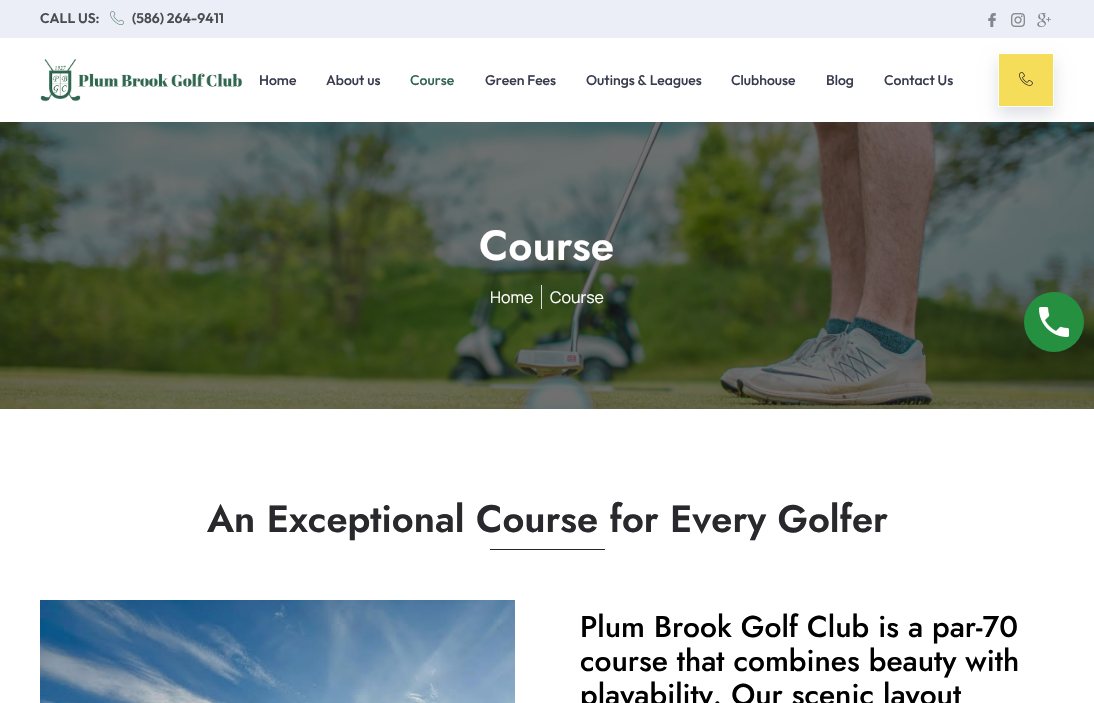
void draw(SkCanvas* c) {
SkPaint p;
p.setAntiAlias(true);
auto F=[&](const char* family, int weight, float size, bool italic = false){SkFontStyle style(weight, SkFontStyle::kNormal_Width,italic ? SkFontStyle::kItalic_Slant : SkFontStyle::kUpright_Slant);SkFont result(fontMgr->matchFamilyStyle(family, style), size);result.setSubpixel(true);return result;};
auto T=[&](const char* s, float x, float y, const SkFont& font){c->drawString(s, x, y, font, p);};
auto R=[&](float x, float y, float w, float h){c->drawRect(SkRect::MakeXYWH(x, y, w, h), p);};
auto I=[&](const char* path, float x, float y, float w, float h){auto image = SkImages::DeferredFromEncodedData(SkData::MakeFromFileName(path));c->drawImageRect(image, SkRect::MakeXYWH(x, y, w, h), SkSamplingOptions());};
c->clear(0xffffffff);
p.setColor(0xffebeef6);
R(0,0,1094,38);
auto f1 = F("Outfit",600,14);
p.setColor(0xff4b4c4f);
T("CALL US:",40,23,f1);
I("1.png",110,11,14,15);
T("(586) 264-9411",132,23,f1);
I("2.png",988,13,8,15);
I("3.png",1011,13,14,14);
I("4.png",1037,13,14,14);
I("5.png",40,58,203,44);
auto f2 = F("Outfit",500,14);
p.setColor(0xff373b4d);
T("Home",259,85,f2);
T("About us",326,85,f2);
p.setColor(0xff30654f);
T("Course",410,85,f2);
p.setColor(0xff373b4d);
T("Green Fees",485,85,f2);
T("Outings & Leagues",586,85,f2);
T("Clubhouse",731,85,f2);
T("Blog",826,85,f2);
T("Contact Us",884,85,f2);
p.setColor(0xffdee0e5);
p.setMaskFilter(SkMaskFilter::MakeBlur(kNormal_SkBlurStyle, 7.5));
c->drawRect(SkRect::MakeXYWH(998,61,56,54),p);
p.setMaskFilter(nullptr);
p.setColor(0xfff5dd59);
c->drawRect(SkRect::MakeXYWH(998.5,53.5,55,53),p);
p.setStroke(true);
p.setStrokeWidth(1);
p.setColor(0xffffffff);
c->drawRect(SkRect::MakeXYWH(998.5,53.5,55,53),p);
I("6.png",1019,71,14,15);
I("7.png",0,122,1094,287);
auto f3 = F("Jost",600,42);
p.setStroke(false);
T("Course",479,260,f3);
auto f4 = F("Manrope",400,16);
T("Home",490,303,f4);
p.setColor(0xffdddddd);
R(541,285,1,24);
p.setColor(0xffffffff);
T("Course",550,303,f4);
auto f5 = F("Jost",600,38);
p.setColor(0xff29282c);
T("An Exceptional Course for Every Golfer",207,532,f5);
p.setColor(0xff262525);
R(490,549,115,1);
I("8.png",40,600,475,103);
auto f6 = F("Jost",500,30);
p.setColor(0xff000000);
T("Plum Brook Golf Club is a par-70",580,637,f6);
T("course that combines beauty with",580,671,f6);
T("playability. Our scenic layout",580,705,f6);
p.setColor(0xff269041);
c->drawCircle(1054,322,30,p);
I("9.png",1039,307,30,30);
}
